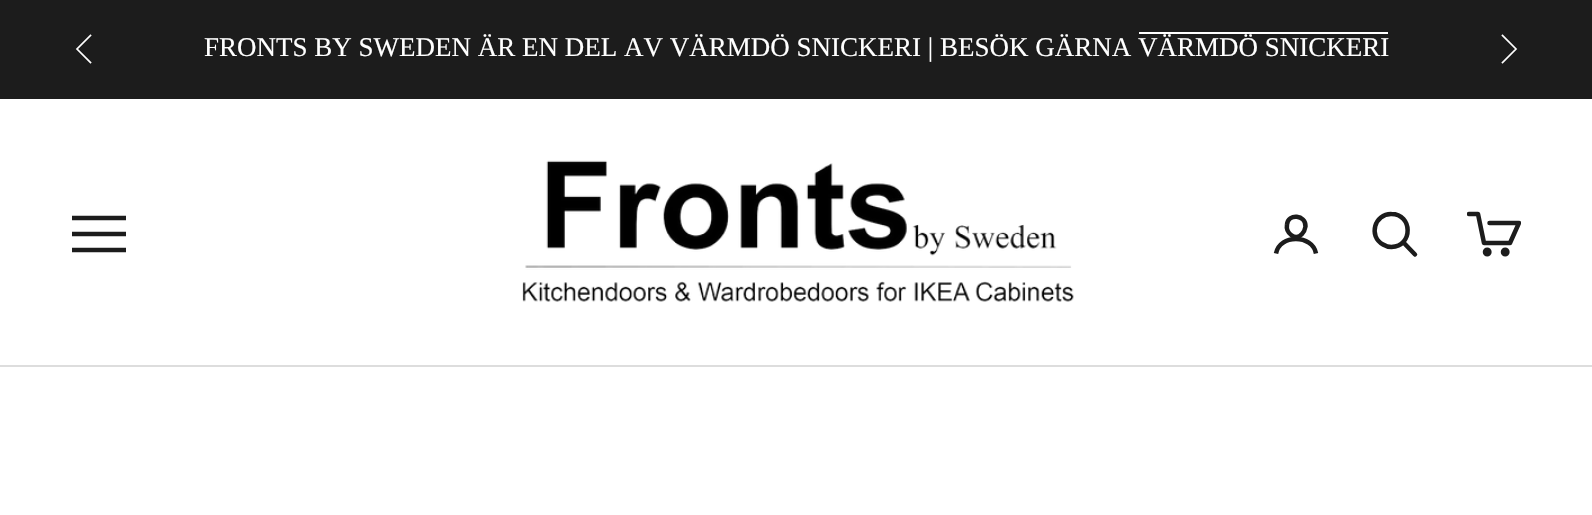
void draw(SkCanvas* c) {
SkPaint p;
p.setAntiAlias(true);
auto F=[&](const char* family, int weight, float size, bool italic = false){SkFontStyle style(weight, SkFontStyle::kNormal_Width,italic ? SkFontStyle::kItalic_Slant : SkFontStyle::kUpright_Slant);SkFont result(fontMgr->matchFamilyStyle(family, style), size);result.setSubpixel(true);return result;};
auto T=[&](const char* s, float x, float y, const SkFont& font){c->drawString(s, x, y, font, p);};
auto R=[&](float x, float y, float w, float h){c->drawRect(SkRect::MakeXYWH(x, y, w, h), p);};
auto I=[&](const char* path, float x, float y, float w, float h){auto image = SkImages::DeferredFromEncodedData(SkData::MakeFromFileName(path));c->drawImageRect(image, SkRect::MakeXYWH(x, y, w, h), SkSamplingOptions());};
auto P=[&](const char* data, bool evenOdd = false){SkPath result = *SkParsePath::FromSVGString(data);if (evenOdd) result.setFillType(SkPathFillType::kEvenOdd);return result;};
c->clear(0xffffffff);
p.setColor(0xff1c1c1c);
R(0,0,1592,99);
p.setStroke(true);
p.setStrokeWidth(1.7);
p.setStrokeCap(SkPaint::kSquare_Cap);
p.setColor(0xffffffff);
c->drawPath(P("M90.5 35.5l-13.5 13.5l13.5 13.5"),p);
p.setStroke(false);
R(1139,32,249,2);
auto f1 = F("Liberation Serif",400,27);
T("FRONTS BY SWEDEN ÄR EN DEL AV VÄRMDÖ SNICKERI | BESÖK GÄRNA VÄRMDÖ SNICKERI",204,56,f1);
p.setStroke(true);
c->drawPath(P("M1502.5 62.5l13.5-13.5l-13.5-13.5"),p);
p.setStroke(false);
p.setColor(0xffdddddd);
R(0,365,1592,2);
c->save();
c->clipRect(SkRect::MakeXYWH(72,207,54,54));
p.setStroke(true);
p.setStrokeWidth(4.5);
p.setColor(0xff1c1c1c);
c->drawPath(P("M74 250h50m-50-16h50m-50-16h50"),p);
c->restore();
I("1.png",522,160,552,142);
p.setStrokeCap(SkPaint::kRound_Cap);
p.setStrokeJoin(SkPaint::kRound_Join);
c->drawPath(P("M1305.5 226.5c-.5 3-1.5 5.5-3.5 7.5c-6.5 7.5-16.5-1-15-9.5c1-11.5 19-10 18.5 2z"),p);
p.setStrokeCap(SkPaint::kButt_Cap);
p.setStrokeJoin(SkPaint::kMiter_Join);
c->drawPath(P("M1276 253.5c3.5-19.5 36.5-19 40 0"),p);
c->drawPath(P("M1391.5 214c-17-.5-23.5 22.5-8.5 30.5c2.5 1.5 5.5 2.5 8.5 2.5c22-1 21-33 0-33z"),p);
p.setStrokeCap(SkPaint::kRound_Cap);
c->drawPath(P("M1403.5 242.5l11.5 12"),p);
c->save();
c->clipRect(SkRect::MakeXYWH(1467,207,54,54));
p.setStrokeJoin(SkPaint::kRound_Join);
c->drawPath(P("M1489.5 223h29.5l-9 20h-26l-6-29h-9"),p);
c->restore();
p.setStrokeCap(SkPaint::kButt_Cap);
p.setStrokeJoin(SkPaint::kMiter_Join);
c->drawCircle(1487.2,252,2.2,p);
c->drawCircle(1505.2,252,2.2,p);
}
